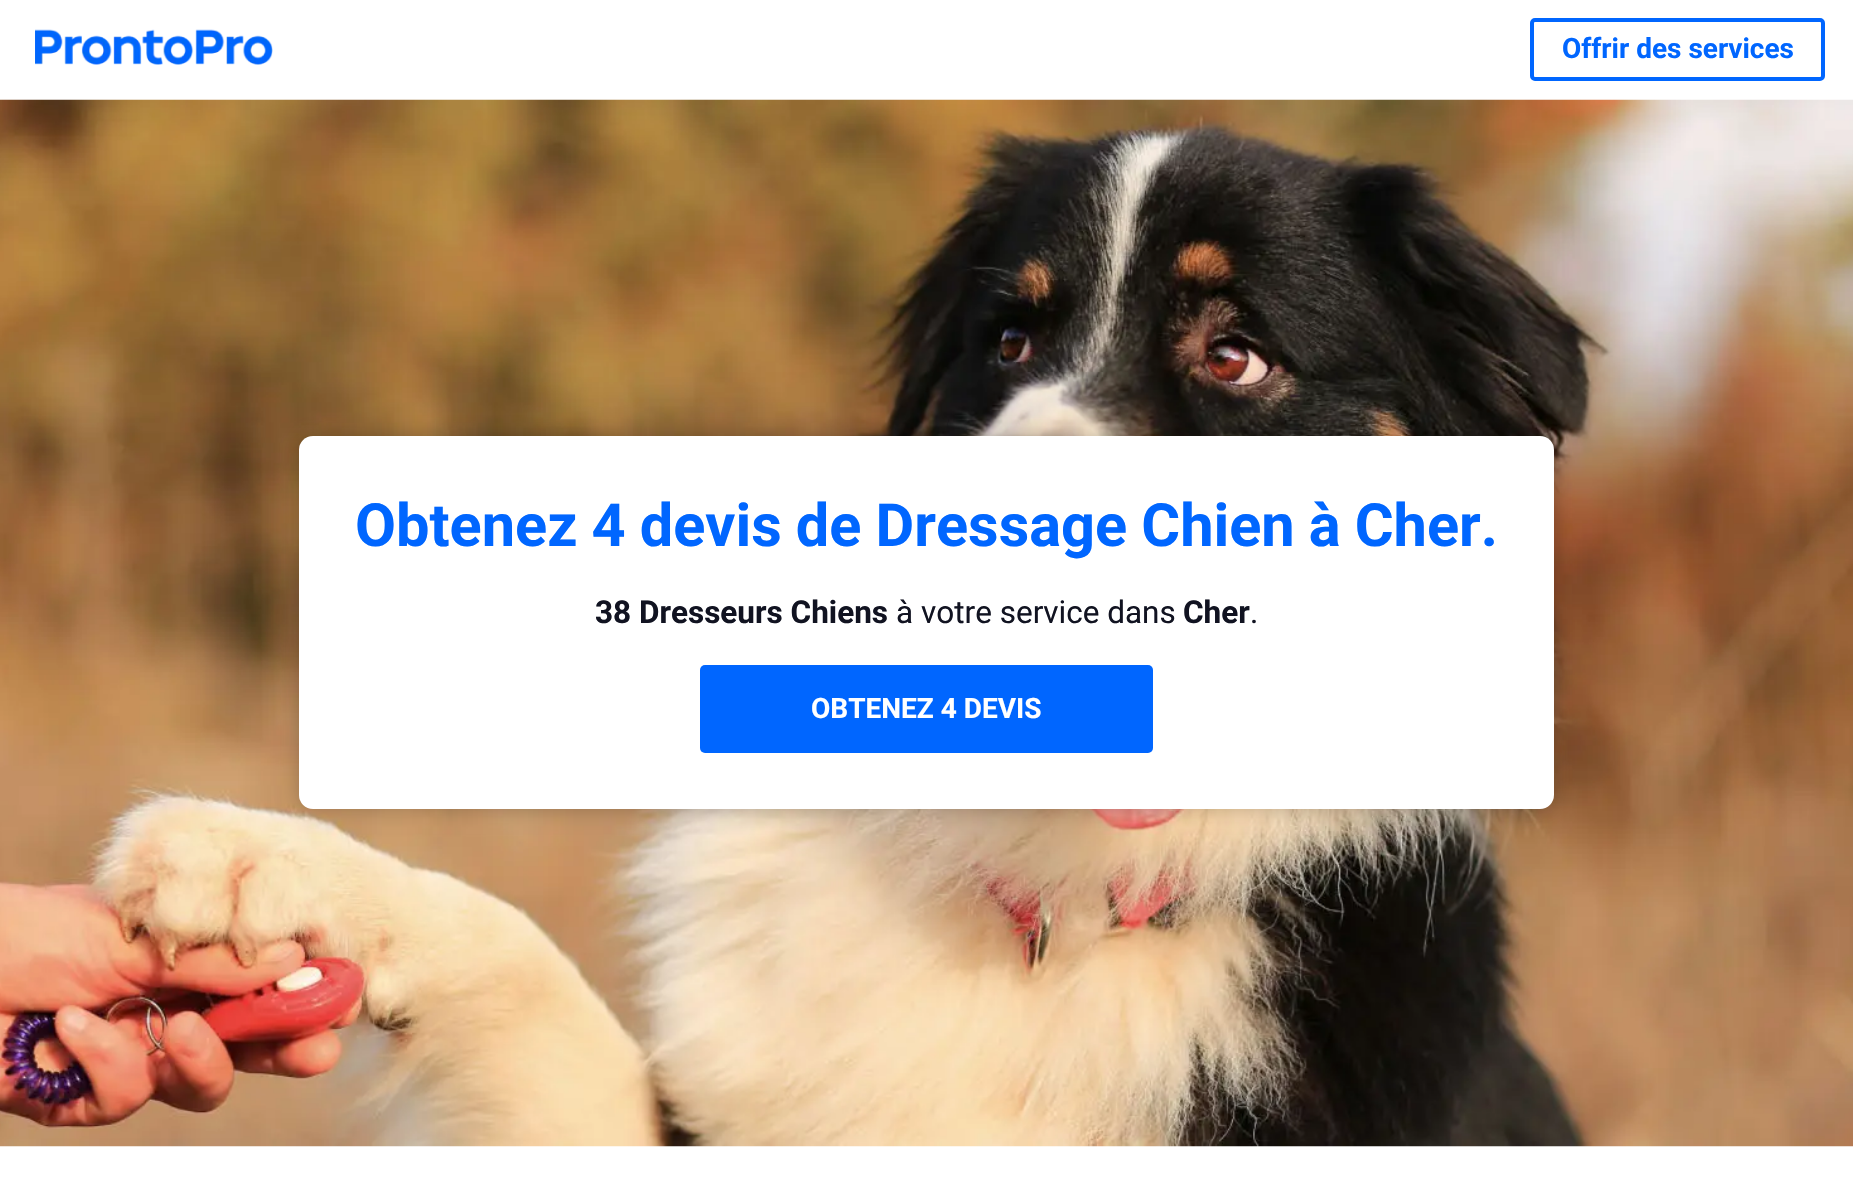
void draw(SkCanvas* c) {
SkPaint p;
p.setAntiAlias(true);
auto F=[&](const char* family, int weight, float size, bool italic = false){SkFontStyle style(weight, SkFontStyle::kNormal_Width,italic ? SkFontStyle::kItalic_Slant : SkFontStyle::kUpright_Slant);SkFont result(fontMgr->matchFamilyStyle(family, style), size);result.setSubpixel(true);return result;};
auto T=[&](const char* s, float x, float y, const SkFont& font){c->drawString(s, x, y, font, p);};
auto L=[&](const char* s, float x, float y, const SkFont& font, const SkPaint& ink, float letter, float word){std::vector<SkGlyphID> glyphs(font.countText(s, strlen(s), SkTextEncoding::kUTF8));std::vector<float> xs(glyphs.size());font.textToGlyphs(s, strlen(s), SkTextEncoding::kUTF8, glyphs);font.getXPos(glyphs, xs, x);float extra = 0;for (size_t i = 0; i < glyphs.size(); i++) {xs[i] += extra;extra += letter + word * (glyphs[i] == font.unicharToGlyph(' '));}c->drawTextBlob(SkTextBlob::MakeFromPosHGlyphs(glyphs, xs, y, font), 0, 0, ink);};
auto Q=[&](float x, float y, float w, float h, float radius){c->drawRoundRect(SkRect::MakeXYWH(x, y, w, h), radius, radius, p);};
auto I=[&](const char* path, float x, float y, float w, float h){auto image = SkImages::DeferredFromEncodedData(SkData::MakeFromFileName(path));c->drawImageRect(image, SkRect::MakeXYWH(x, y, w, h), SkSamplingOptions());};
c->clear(0xffffffff);
I("1.png",35,29,238,36);
p.setStroke(true);
p.setStrokeWidth(4);
p.setColor(0xff0066ff);
c->drawRoundRect(SkRect::MakeXYWH(1532,20,291,59),3,3,p);
auto f1 = F("Roboto",700,28);
p.setStroke(false);
T("Offrir des services",1562,58,f1);
I("2.png",0,99,1853,1048);
p.setColor(0x40000000);
p.setMaskFilter(SkMaskFilter::MakeBlur(kNormal_SkBlurStyle, 10.5));
c->drawRoundRect(SkRect::MakeXYWH(299,436,1255,373),14,14,p);
p.setMaskFilter(nullptr);
p.setColor(0xffffffff);
Q(299,436,1255,373,14);
auto f2 = F("Roboto",700,59.5);
p.setColor(0xff0066ff);
L("Obtenez 4 devis de Dressage Chien à Cher.",355,546,f2,p,0,-.75);
auto f3 = F("Roboto",700,31.5);
p.setColor(0xff111321);
T("38 Dresseurs Chiens",595,623,f3);
auto f4 = F("Roboto",400,31.5);
T("à votre service dans",896,623,f4);
T("Cher",1183,623,f3);
T(".",1250,623,f4);
p.setColor(0xff0066ff);
Q(700,665,453,88,5);
p.setColor(0xffffffff);
T("OBTENEZ 4 DEVIS",811,718,f1);
}
